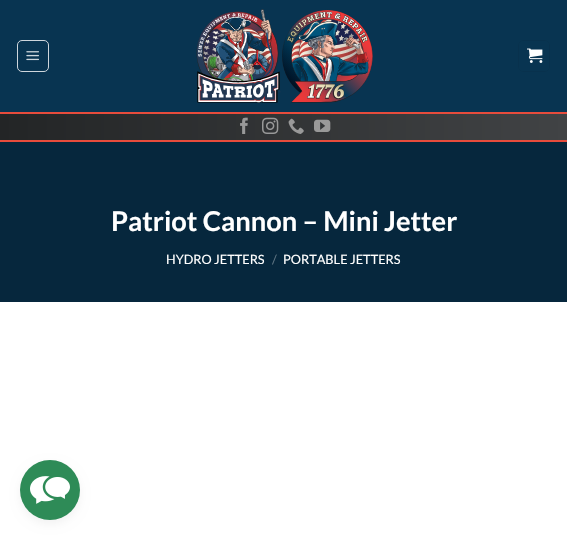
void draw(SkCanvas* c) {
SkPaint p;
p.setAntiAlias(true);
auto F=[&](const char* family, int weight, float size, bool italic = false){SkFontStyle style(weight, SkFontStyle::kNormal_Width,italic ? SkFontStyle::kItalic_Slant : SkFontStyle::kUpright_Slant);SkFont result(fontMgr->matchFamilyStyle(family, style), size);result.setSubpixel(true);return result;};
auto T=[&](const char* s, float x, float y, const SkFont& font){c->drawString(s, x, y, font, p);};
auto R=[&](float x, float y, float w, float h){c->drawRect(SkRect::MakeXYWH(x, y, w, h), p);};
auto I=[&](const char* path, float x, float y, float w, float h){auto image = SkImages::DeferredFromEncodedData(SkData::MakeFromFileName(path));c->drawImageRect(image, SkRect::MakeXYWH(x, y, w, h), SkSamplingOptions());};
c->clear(0xffffffff);
p.setColor(0xff083451);
R(0,0,567,112);
p.setStroke(true);
p.setStrokeWidth(1);
p.setColor(0xffced6dc);
c->drawRoundRect(SkRect::MakeXYWH(17.5,40.5,31,31),4.5,4.5,p);
I("1.png",26,51,13,10);
I("2.png",196,9,177,94);
p.setColor(0xff08314d);
c->drawRoundRect(SkRect::MakeXYWH(518.5,40.5,31,31),4.5,4.5,p);
I("3.png",527,48,16,15);
p.setStroke(false);
{
const SkColor colors[] = {0xff232526,0xff414345};
const float stops[] = {0,1};
const SkPoint ends[] = {{0,127}, {567,127}};
p.setShader(SkGradientShader::MakeLinear(ends, colors, stops, 2, SkTileMode::kClamp));
p.setAlpha(255);
}
R(0,114,567,26);
p.setShader(nullptr);
p.setColor(0xffe74c3c);
R(0,112,567,2);
R(0,140,567,2);
I("4.png",240,117,8,17);
I("5.png",262,117,17,17);
I("6.png",288,118,16,16);
I("7.png",314,119,17,13);
p.setColor(0xff06273d);
R(0,142,567,160);
auto f1 = F("Lato",700,27.25);
p.setColor(0xffffffff);
T("Patriot Cannon – Mini Jetter",111,231,f1);
auto f2 = F("Lato",400,12.75);
T("HYDRO JETTERS",166,264,f2);
p.setColor(0xff5d7381);
T("/",272,264,f2);
p.setColor(0xffffffff);
T("PORTABLE JETTERS",283,264,f2);
p.setColor(0x0d000000);
p.setMaskFilter(SkMaskFilter::MakeBlur(kNormal_SkBlurStyle, 5));
c->drawRoundRect(SkRect::MakeXYWH(20,464,60,60),30,30,p);
p.setMaskFilter(nullptr);
p.setColor(0xff2e8b57);
c->drawCircle(50,490,30,p);
I("8.png",30,476,40,28);
}
